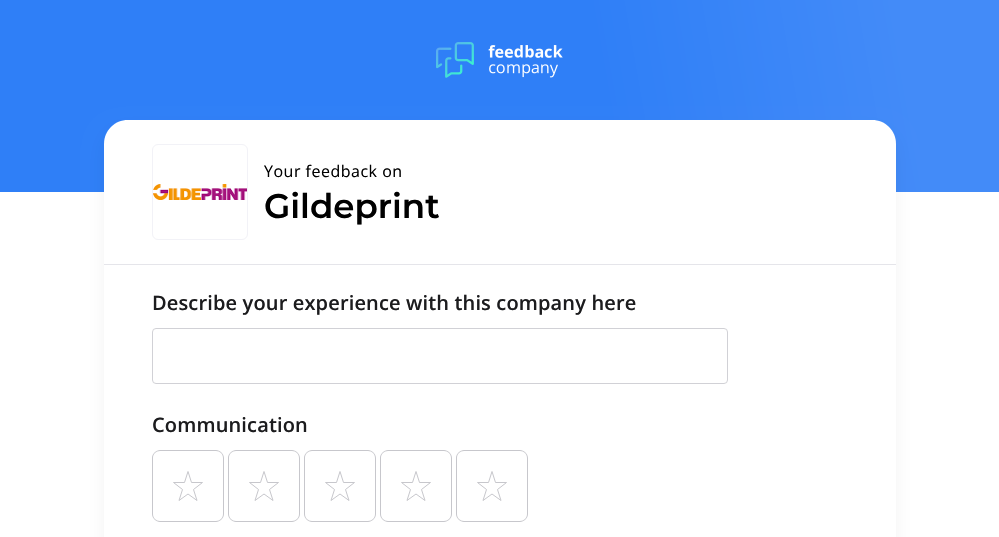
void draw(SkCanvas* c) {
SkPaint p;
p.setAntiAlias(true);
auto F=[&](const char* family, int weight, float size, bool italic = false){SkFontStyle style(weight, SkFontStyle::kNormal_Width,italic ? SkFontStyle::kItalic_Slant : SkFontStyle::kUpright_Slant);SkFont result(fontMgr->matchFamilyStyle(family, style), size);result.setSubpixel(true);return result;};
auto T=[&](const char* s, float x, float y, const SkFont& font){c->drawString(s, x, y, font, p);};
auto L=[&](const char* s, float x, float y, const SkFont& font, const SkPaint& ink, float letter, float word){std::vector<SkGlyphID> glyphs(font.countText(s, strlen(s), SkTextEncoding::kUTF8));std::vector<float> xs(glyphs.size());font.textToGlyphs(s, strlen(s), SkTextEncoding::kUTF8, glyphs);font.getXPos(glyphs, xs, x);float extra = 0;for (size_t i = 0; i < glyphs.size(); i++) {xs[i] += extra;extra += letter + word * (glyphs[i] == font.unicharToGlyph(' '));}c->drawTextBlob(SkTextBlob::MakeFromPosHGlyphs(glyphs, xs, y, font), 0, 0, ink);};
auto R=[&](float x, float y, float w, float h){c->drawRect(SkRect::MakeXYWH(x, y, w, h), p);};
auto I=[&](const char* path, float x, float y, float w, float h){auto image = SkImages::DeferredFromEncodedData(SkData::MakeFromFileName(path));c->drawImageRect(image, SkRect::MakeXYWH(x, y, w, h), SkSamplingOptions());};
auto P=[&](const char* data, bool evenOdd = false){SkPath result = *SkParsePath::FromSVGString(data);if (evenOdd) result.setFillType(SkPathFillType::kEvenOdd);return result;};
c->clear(0xffffffff);
{
const SkColor colors[] = {0xff438bf8,0xff2f7ff7};
const float stops[] = {.1,.4};
const SkPoint ends[] = {{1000,7.7}, {-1.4,184}};
p.setShader(SkGradientShader::MakeLinear(ends, colors, stops, 2, SkTileMode::kClamp));
p.setAlpha(255);
}
R(0,0,999,192);
I("1.png",436,42,127,36);
p.setShader(nullptr);
p.setColor(0x0d1e1e1e);
p.setMaskFilter(SkMaskFilter::MakeBlur(kNormal_SkBlurStyle, 10));
c->drawRoundRect(SkRect::MakeXYWH(104,130,792,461),24,24,p);
p.setMaskFilter(nullptr);
p.setColor(0xffffffff);
c->drawPath(P("M128 120h744c13.5 0 24 10.5 24 24v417h-792v-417c0-13.5 10.5-24 24-24z"),p);
p.setStroke(true);
p.setStrokeWidth(1);
p.setColor(0xfff2f2f7);
c->drawRoundRect(SkRect::MakeXYWH(152.5,144.5,95,95),5.5,5.5,p);
I("2.png",153,184,94,16);
auto f1 = F("Open Sans",400,16);
p.setStroke(false);
p.setColor(0xff000000);
L("Your feedback on",264,177,f1,p,.5,0);
auto f2 = F("Montserrat",600,34);
T("Gildeprint",264,218,f2);
p.setColor(0xffe5e5ea);
R(104,264,792,1);
auto f3 = F("Open Sans",600,20);
p.setColor(0xff1c1c1e);
L("Describe your experience with this company here",152,310,f3,p,.15,0);
p.setStroke(true);
p.setColor(0xffd1d1d6);
c->drawRoundRect(SkRect::MakeXYWH(152.5,328.5,575,55),3.5,3.5,p);
p.setStroke(false);
p.setColor(0xff1c1c1e);
L("Communication",152,432,f3,p,.15,0);
p.setColor(0xffc7c7cc);
c->drawPath(P("M160 450h28v72h-28c-4 0-8-4-8-8v-56c0-4 4-8 8-8zm0 1h28v70h-28c-4 0-7-3-7-7v-56c0-4 3-7 7-7z",true),p);
c->drawPath(P("M188 450h28c4 0 8 4 8 8v56c0 4-4 8-8 8h-28zm0 1h28c4 0 7 3 7 7v56c0 4-3 7-7 7h-28z",true),p);
p.setStroke(true);
c->drawPath(P("M197 500.5l-3.5-11l9-7h-11l-3.5-11l-3.5 11h-11l9 7l-3.5 11l9-6.5z"),p);
p.setStroke(false);
c->drawPath(P("M236 450h28v72h-28c-4 0-8-4-8-8v-56c0-4 4-8 8-8zm0 1h28v70h-28c-4 0-7-3-7-7v-56c0-4 3-7 7-7z",true),p);
c->drawPath(P("M264 450h28c4 0 8 4 8 8v56c0 4-4 8-8 8h-28zm0 1h28c4 0 7 3 7 7v56c0 4-3 7-7 7h-28z",true),p);
p.setStroke(true);
c->drawPath(P("M273 500.5l-3.5-11l9-7h-11l-3.5-11l-3.5 11h-11l9 7l-3.5 11l9-6.5z"),p);
p.setStroke(false);
c->drawPath(P("M312 450h28v72h-28c-4 0-8-4-8-8v-56c0-4 4-8 8-8zm0 1h28v70h-28c-4 0-7-3-7-7v-56c0-4 3-7 7-7z",true),p);
c->drawPath(P("M340 450h28c4 0 8 4 8 8v56c0 4-4 8-8 8h-28zm0 1h28c4 0 7 3 7 7v56c0 4-3 7-7 7h-28z",true),p);
p.setStroke(true);
c->drawPath(P("M349 500.5l-3.5-11l9-7h-11l-3.5-11l-3.5 11h-11l9 7l-3.5 11l9-6.5z"),p);
p.setStroke(false);
c->drawPath(P("M388 450h28v72h-28c-4 0-8-4-8-8v-56c0-4 4-8 8-8zm0 1h28v70h-28c-4 0-7-3-7-7v-56c0-4 3-7 7-7z",true),p);
c->drawPath(P("M416 450h28c4 0 8 4 8 8v56c0 4-4 8-8 8h-28zm0 1h28c4 0 7 3 7 7v56c0 4-3 7-7 7h-28z",true),p);
p.setStroke(true);
c->drawPath(P("M425 500.5l-3.5-11l9-7h-11l-3.5-11l-3.5 11h-11l9 7l-3.5 11l9-6.5z"),p);
p.setStroke(false);
c->drawPath(P("M464 450h28v72h-28c-4 0-8-4-8-8v-56c0-4 4-8 8-8zm0 1h28v70h-28c-4 0-7-3-7-7v-56c0-4 3-7 7-7z",true),p);
c->drawPath(P("M492 450h28c4 0 8 4 8 8v56c0 4-4 8-8 8h-28zm0 1h28c4 0 7 3 7 7v56c0 4-3 7-7 7h-28z",true),p);
p.setStroke(true);
c->drawPath(P("M501 500.5l-3.5-11l9-7h-11l-3.5-11l-3.5 11h-11l9 7l-3.5 11l9-6.5z"),p);
}
